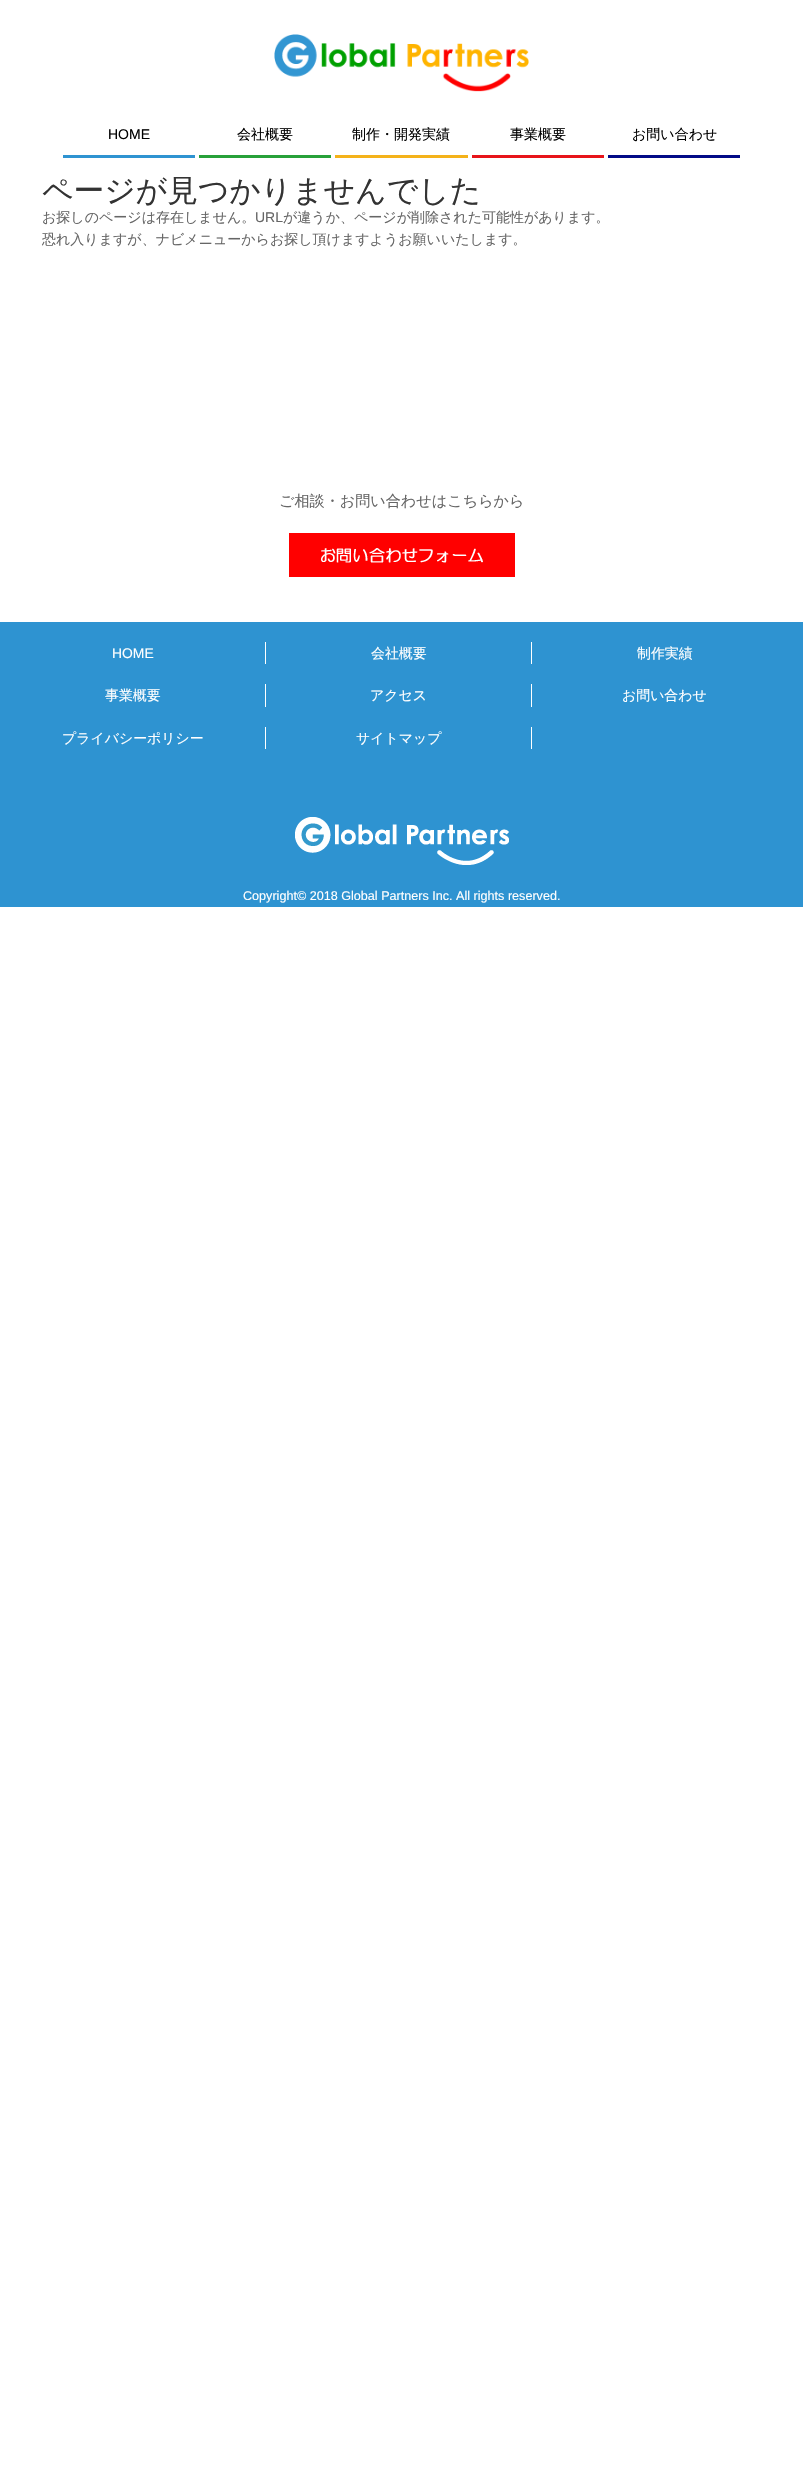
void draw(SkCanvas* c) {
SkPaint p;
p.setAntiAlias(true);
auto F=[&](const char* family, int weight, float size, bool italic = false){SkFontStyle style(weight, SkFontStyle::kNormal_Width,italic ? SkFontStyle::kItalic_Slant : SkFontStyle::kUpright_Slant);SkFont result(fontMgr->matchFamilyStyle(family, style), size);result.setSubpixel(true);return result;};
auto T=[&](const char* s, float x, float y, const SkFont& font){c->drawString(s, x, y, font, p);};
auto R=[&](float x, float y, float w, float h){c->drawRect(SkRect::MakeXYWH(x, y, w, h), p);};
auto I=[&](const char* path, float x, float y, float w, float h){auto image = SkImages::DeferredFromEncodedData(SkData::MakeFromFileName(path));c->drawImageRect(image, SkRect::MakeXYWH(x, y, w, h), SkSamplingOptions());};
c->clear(0xffffffff);
I("1.png",274,34,255,58);
p.setColor(0xff2e93d1);
R(63,155,132,3);
auto f1 = F("Liberation Sans",400,14);
p.setColor(0xff000000);
T("HOME",108,139,f1);
p.setColor(0xff28a139);
R(199,155,132,3);
auto f2 = F("WenQuanYi Zen Hei",500,14);
p.setColor(0xff000000);
T("会社概要",237,139,f2);
p.setColor(0xfff4b21a);
R(335,155,133,3);
p.setColor(0xff000000);
T("制作・開発実績",352,139,f2);
p.setColor(0xffe7141a);
R(472,155,132,3);
p.setColor(0xff000000);
T("事業概要",510,139,f2);
p.setColor(0xff020a87);
R(608,155,132,3);
p.setColor(0xff000000);
T("お問い合わせ",632,139,f2);
auto f3 = F("WenQuanYi Zen Hei",500,30.75);
p.setColor(0xff333333);
T("ページが見つかりませんでした",42,201,f3);
p.setColor(0xff666666);
T("お探しのページは存在しません。",42,222,f2);
T("URL",255,222,f1);
T("が違うか、ページが削除された可能性があります。",283,222,f2);
T("恐れ入りますが、ナビメニューからお探し頂けますようお願いいたします。",42,244,f2);
p.setColor(0xff2e93d1);
R(0,622,803,285);
auto f4 = F("WenQuanYi Zen Hei",500,15.1);
p.setColor(0xff666666);
T("ご相談・お問い合わせはこちらから",279,506,f4);
I("2.png",289,533,226,44);
auto f5 = F("Liberation Sans",400,13.9);
p.setColor(0xffffffff);
T("HOME",112,658,f5);
R(531,642,1,22);
R(265,642,1,22);
auto f6 = F("WenQuanYi Zen Hei",500,13.9);
T("会社概要",371,658,f6);
T("制作実績",637,658,f6);
T("事業概要",105,700,f6);
R(531,684,1,23);
R(265,684,1,23);
T("アクセス",370,700,f6);
T("お問い合わせ",622,700,f6);
T("プライバシーポリシー",62,743,f6);
R(531,727,1,22);
R(265,727,1,22);
T("サイトマップ",356,743,f6);
I("3.png",295,817,214,48);
auto f7 = F("Liberation Sans",400,12.6);
T("Copyright© 2018 Global Partners Inc. All rights reserved.",243,900,f7);
}
